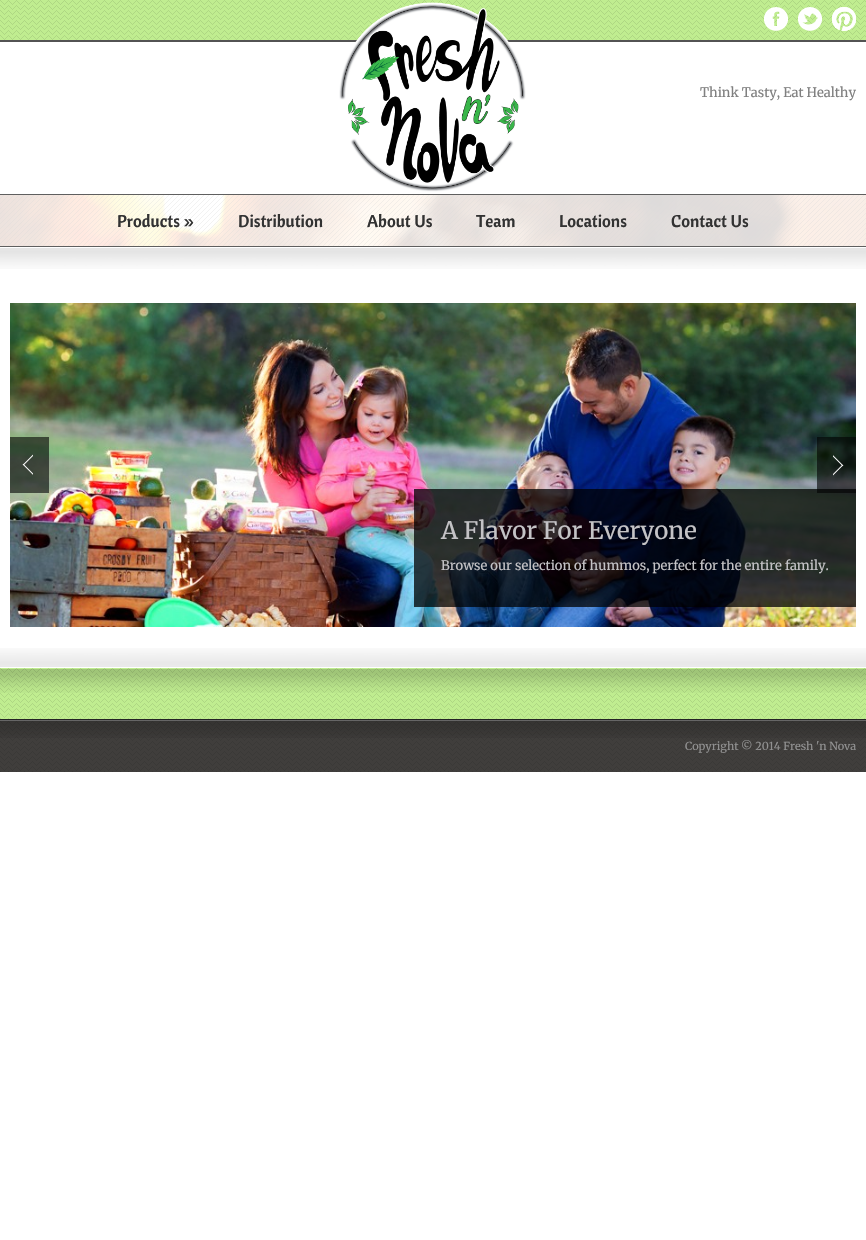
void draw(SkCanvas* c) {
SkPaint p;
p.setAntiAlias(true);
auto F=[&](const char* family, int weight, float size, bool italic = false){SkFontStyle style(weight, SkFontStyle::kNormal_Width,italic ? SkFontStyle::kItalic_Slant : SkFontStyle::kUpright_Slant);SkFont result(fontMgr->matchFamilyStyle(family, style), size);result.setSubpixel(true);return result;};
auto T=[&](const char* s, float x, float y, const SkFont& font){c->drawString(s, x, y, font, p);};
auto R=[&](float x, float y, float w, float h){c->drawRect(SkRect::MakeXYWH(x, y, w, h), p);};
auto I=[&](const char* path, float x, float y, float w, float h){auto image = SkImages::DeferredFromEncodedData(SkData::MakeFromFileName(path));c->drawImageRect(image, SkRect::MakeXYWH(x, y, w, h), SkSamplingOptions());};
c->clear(0xffffffff);
p.setColor(0xffc0ed90);
R(0,0,866,40);
I("1.png",0,0,866,40);
I("2.png",764,7,24,24);
I("3.png",798,7,24,24);
I("4.png",832,7,24,24);
p.setColor(0xff535353);
R(0,40,866,2);
I("5.png",339,2,187,190);
auto f1 = F("Merriweather",400,13);
p.setColor(0xff808080);
T("Think Tasty, Eat Healthy",700,97,f1);
I("6.png",0,195,866,51);
I("7.png",0,195,866,51);
p.setColor(0xff5f5f5f);
R(0,194,866,1);
R(0,246,866,1);
auto f2 = F("Cantora One",400,17);
p.setColor(0xff323232);
T("Products »",117,227,f2);
T("Distribution",238,227,f2);
T("About Us",367,227,f2);
T("Team",476,227,f2);
T("Locations",559,227,f2);
T("Contact Us",671,227,f2);
I("8.png",0,248,866,21);
I("9.png",0,648,866,19);
I("10.png",10,303,846,324);
I("11.png",10,437,39,56);
p.setColor(0xbf000000);
R(414,489,442,118);
I("12.png",817,437,39,56);
auto f3 = F("Merriweather",400,24);
p.setColor(0xffc4c3c6);
T("A Flavor For Everyone",441,539,f3);
T("Browse our selection",441,570,f1);
T("of hummos, perfect for the entire family.",574,570,f1);
p.setColor(0xffc0ed90);
R(0,668,866,51);
I("13.png",0,668,866,51);
I("14.png",0,669,866,24);
p.setColor(0xff403e3c);
R(0,721,866,51);
I("15.png",0,721,866,17);
p.setColor(0xff242424);
R(0,719,866,1);
I("16.png",0,721,866,51);
p.setColor(0xff666666);
R(0,720,866,1);
auto f4 = F("Merriweather",400,11);
p.setColor(0xff919191);
T("Copyright © 2014 Fresh 'n Nova",685,750,f4);
}
